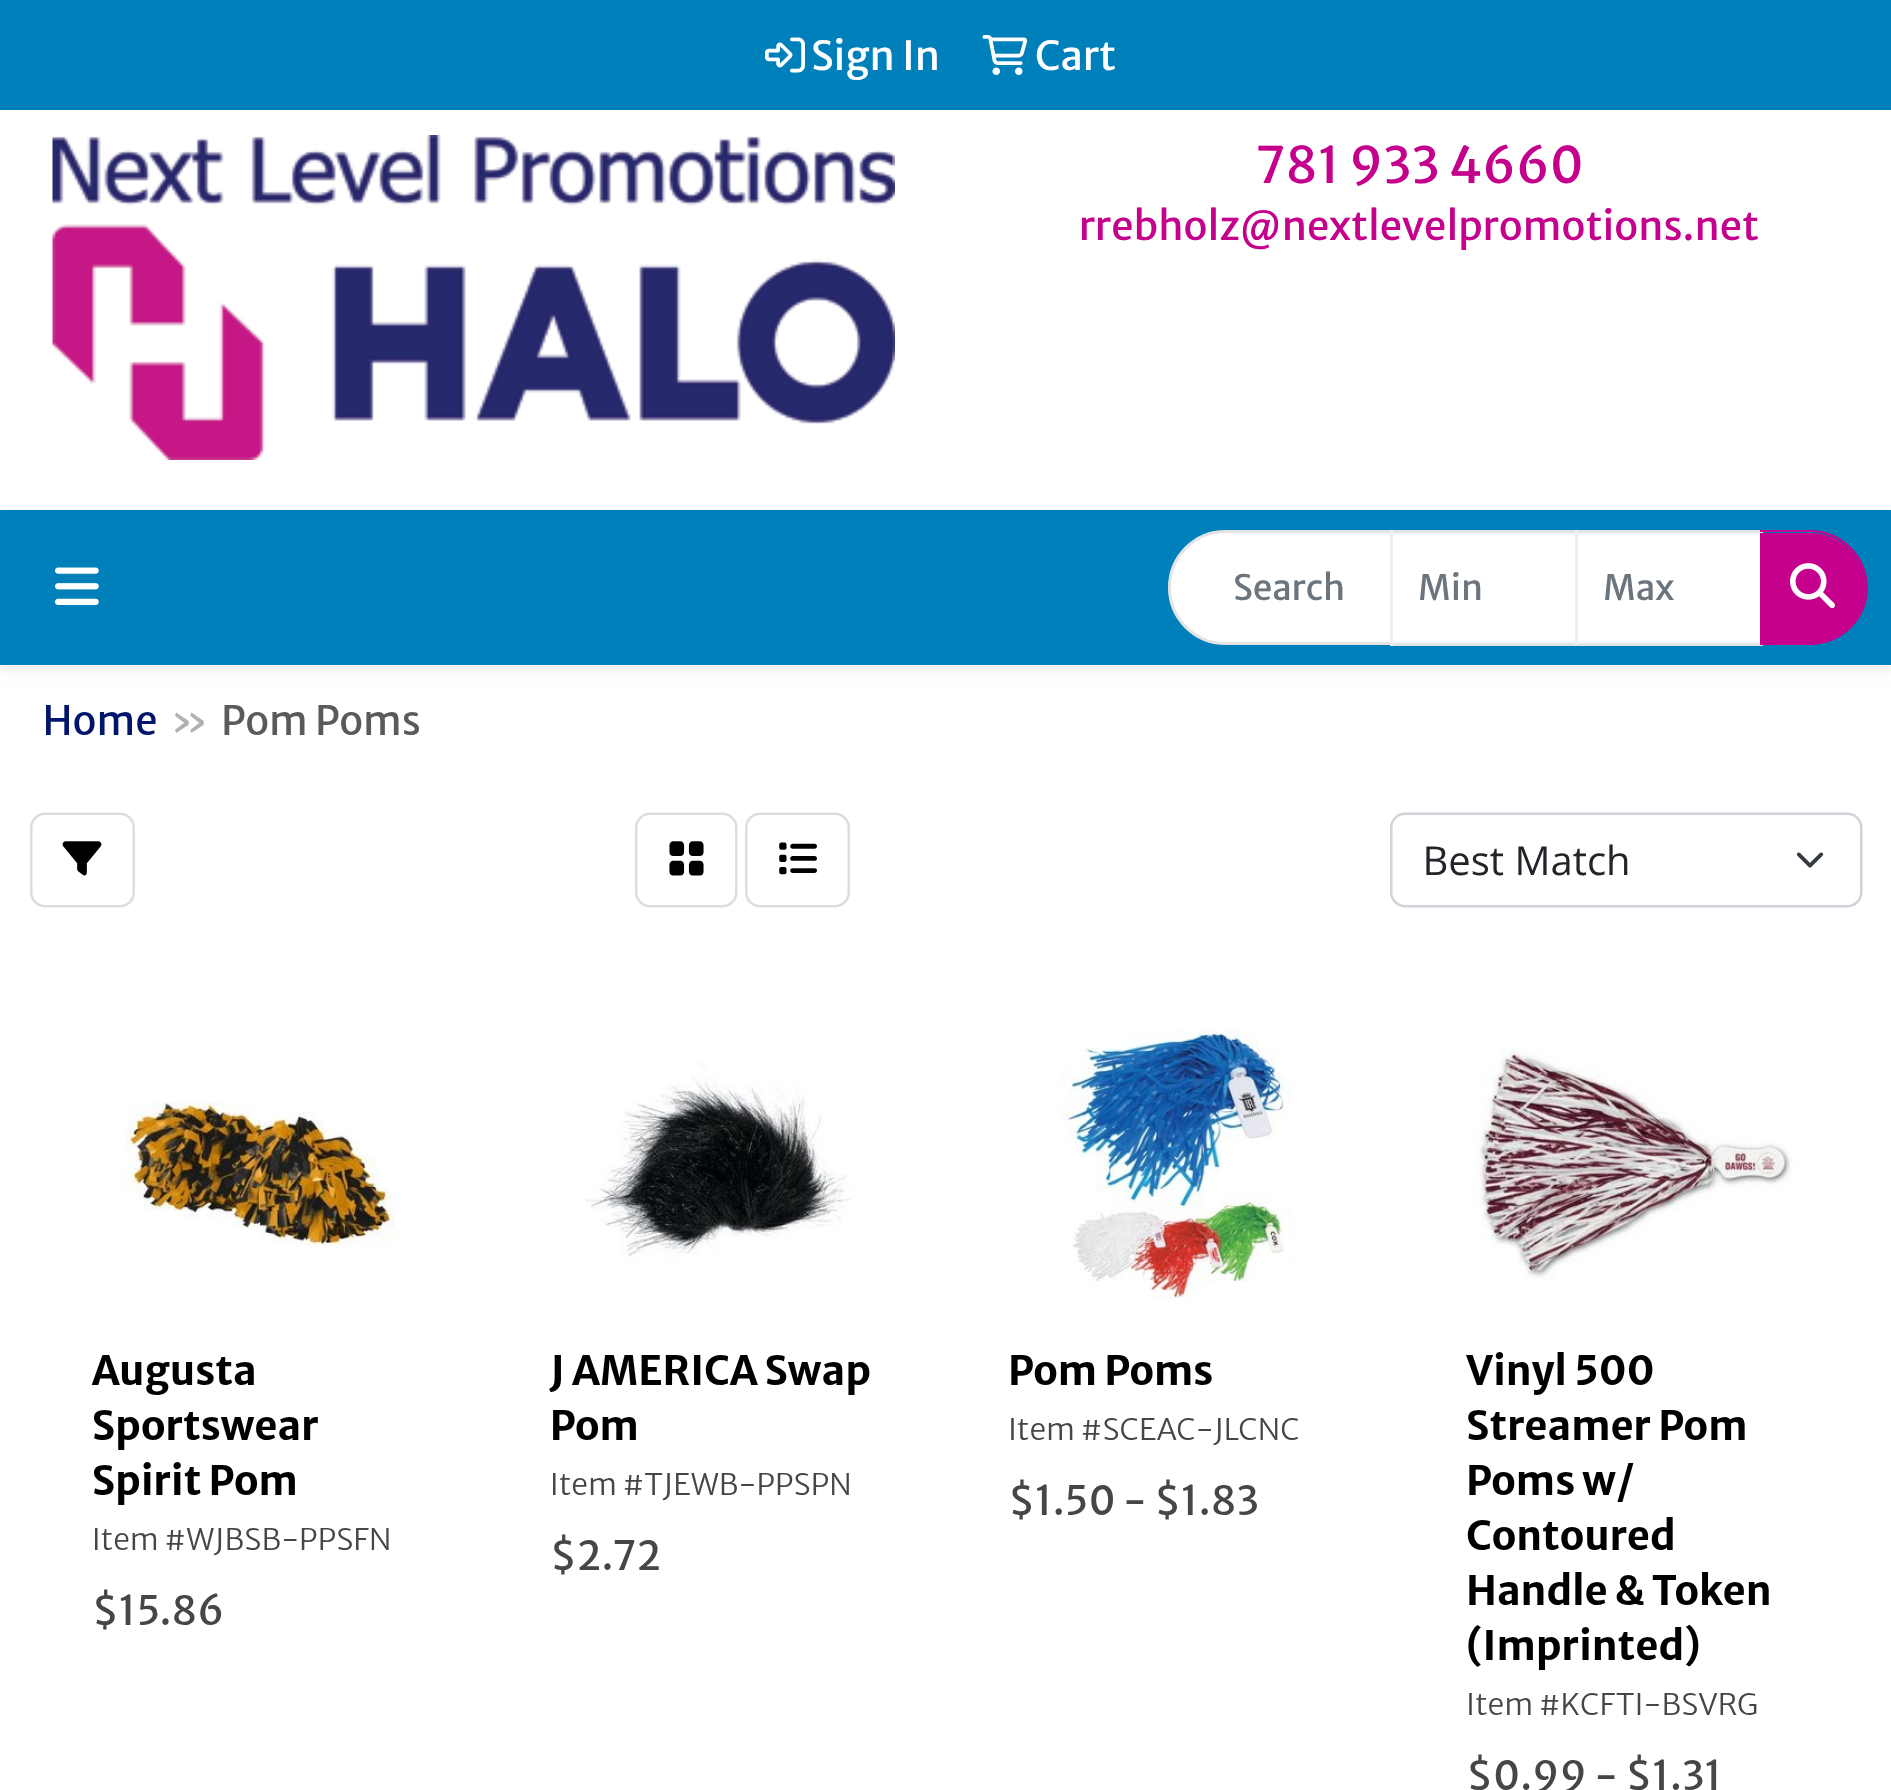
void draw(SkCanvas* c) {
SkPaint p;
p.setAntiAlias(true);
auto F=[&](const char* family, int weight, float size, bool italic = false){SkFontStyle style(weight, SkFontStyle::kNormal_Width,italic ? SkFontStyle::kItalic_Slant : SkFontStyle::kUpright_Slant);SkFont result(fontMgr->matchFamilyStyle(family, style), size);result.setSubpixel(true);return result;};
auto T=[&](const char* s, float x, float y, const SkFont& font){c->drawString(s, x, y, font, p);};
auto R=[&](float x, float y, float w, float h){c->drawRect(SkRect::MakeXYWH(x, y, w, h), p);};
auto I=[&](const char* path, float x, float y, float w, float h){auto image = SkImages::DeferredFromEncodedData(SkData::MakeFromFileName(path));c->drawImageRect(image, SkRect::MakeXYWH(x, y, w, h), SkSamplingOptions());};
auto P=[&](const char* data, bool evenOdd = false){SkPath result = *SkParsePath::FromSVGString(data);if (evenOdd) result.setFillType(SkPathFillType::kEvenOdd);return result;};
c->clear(0xffffffff);
p.setColor(0xff0080ba);
R(0,0,1891,110);
I("1.png",765,37,40,36);
auto f1 = F("Merriweather Sans",400,40);
p.setColor(0xffffffff);
T("Sign In",811,70,f1);
I("2.png",982,35,46,40);
T("Cart",1035,70,f1);
I("3.png",52,135,843,325);
auto f2 = F("Merriweather Sans",400,50);
p.setColor(0xffc4008d);
T("781 933 4660",1255,183,f2);
T("rrebholz@nextlevelpromotions.net",1079,240,f1);
p.setColor(0x12000000);
p.setMaskFilter(SkMaskFilter::MakeBlur(kNormal_SkBlurStyle, 5));
c->drawRect(SkRect::MakeXYWH(0,515,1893,155),p);
p.setMaskFilter(nullptr);
p.setColor(0xff0080ba);
R(0,510,1891,155);
I("4.png",55,567,44,38);
p.setColor(0xffffffff);
c->drawPath(P("M1225.5 531.5h166v112h-166c-31 0-56-25-56-56c0-31 25-56 56-56z"),p);
p.setStroke(true);
p.setStrokeWidth(3);
p.setColor(0xffe4e4e4);
c->drawPath(P("M1225.5 531.5h166v112h-166c-31 0-56-25-56-56c0-31 25-56 56-56z"),p);
auto f3 = F("Merriweather Sans",400,35);
p.setStroke(false);
p.setColor(0xff6c757d);
T("Search",1233,600,f3);
p.setColor(0xffffffff);
R(1393,533,182,110);
p.setColor(0xffe4e4e4);
R(1390,530,373,3);
R(1390,643,373,3);
p.setColor(0xffefefef);
R(1390,530,3,115);
p.setColor(0xff6c757d);
T("Min",1418,600,f3);
p.setColor(0xffffffff);
R(1578,533,182,110);
p.setColor(0xffefefef);
R(1760,530,3,3);
R(1575,530,3,115);
p.setColor(0xff6c757d);
T("Max",1603,600,f3);
p.setColor(0xffc4008d);
c->drawPath(P("M1760 533h50c30.5 0 55 24.5 55 55c0 30.5-24.5 55-55 55h-50z"),p);
c->drawPath(P("M1760 530h50c32 0 58 26 58 58c0 31-26 57-58 57h-50zm0 2h50c30 0 55 25 55 56c0 30-25 54-55 54h-50z",true),p);
I("5.png",1790,563,45,46);
I("6.png",30,705,1833,1085);
}
